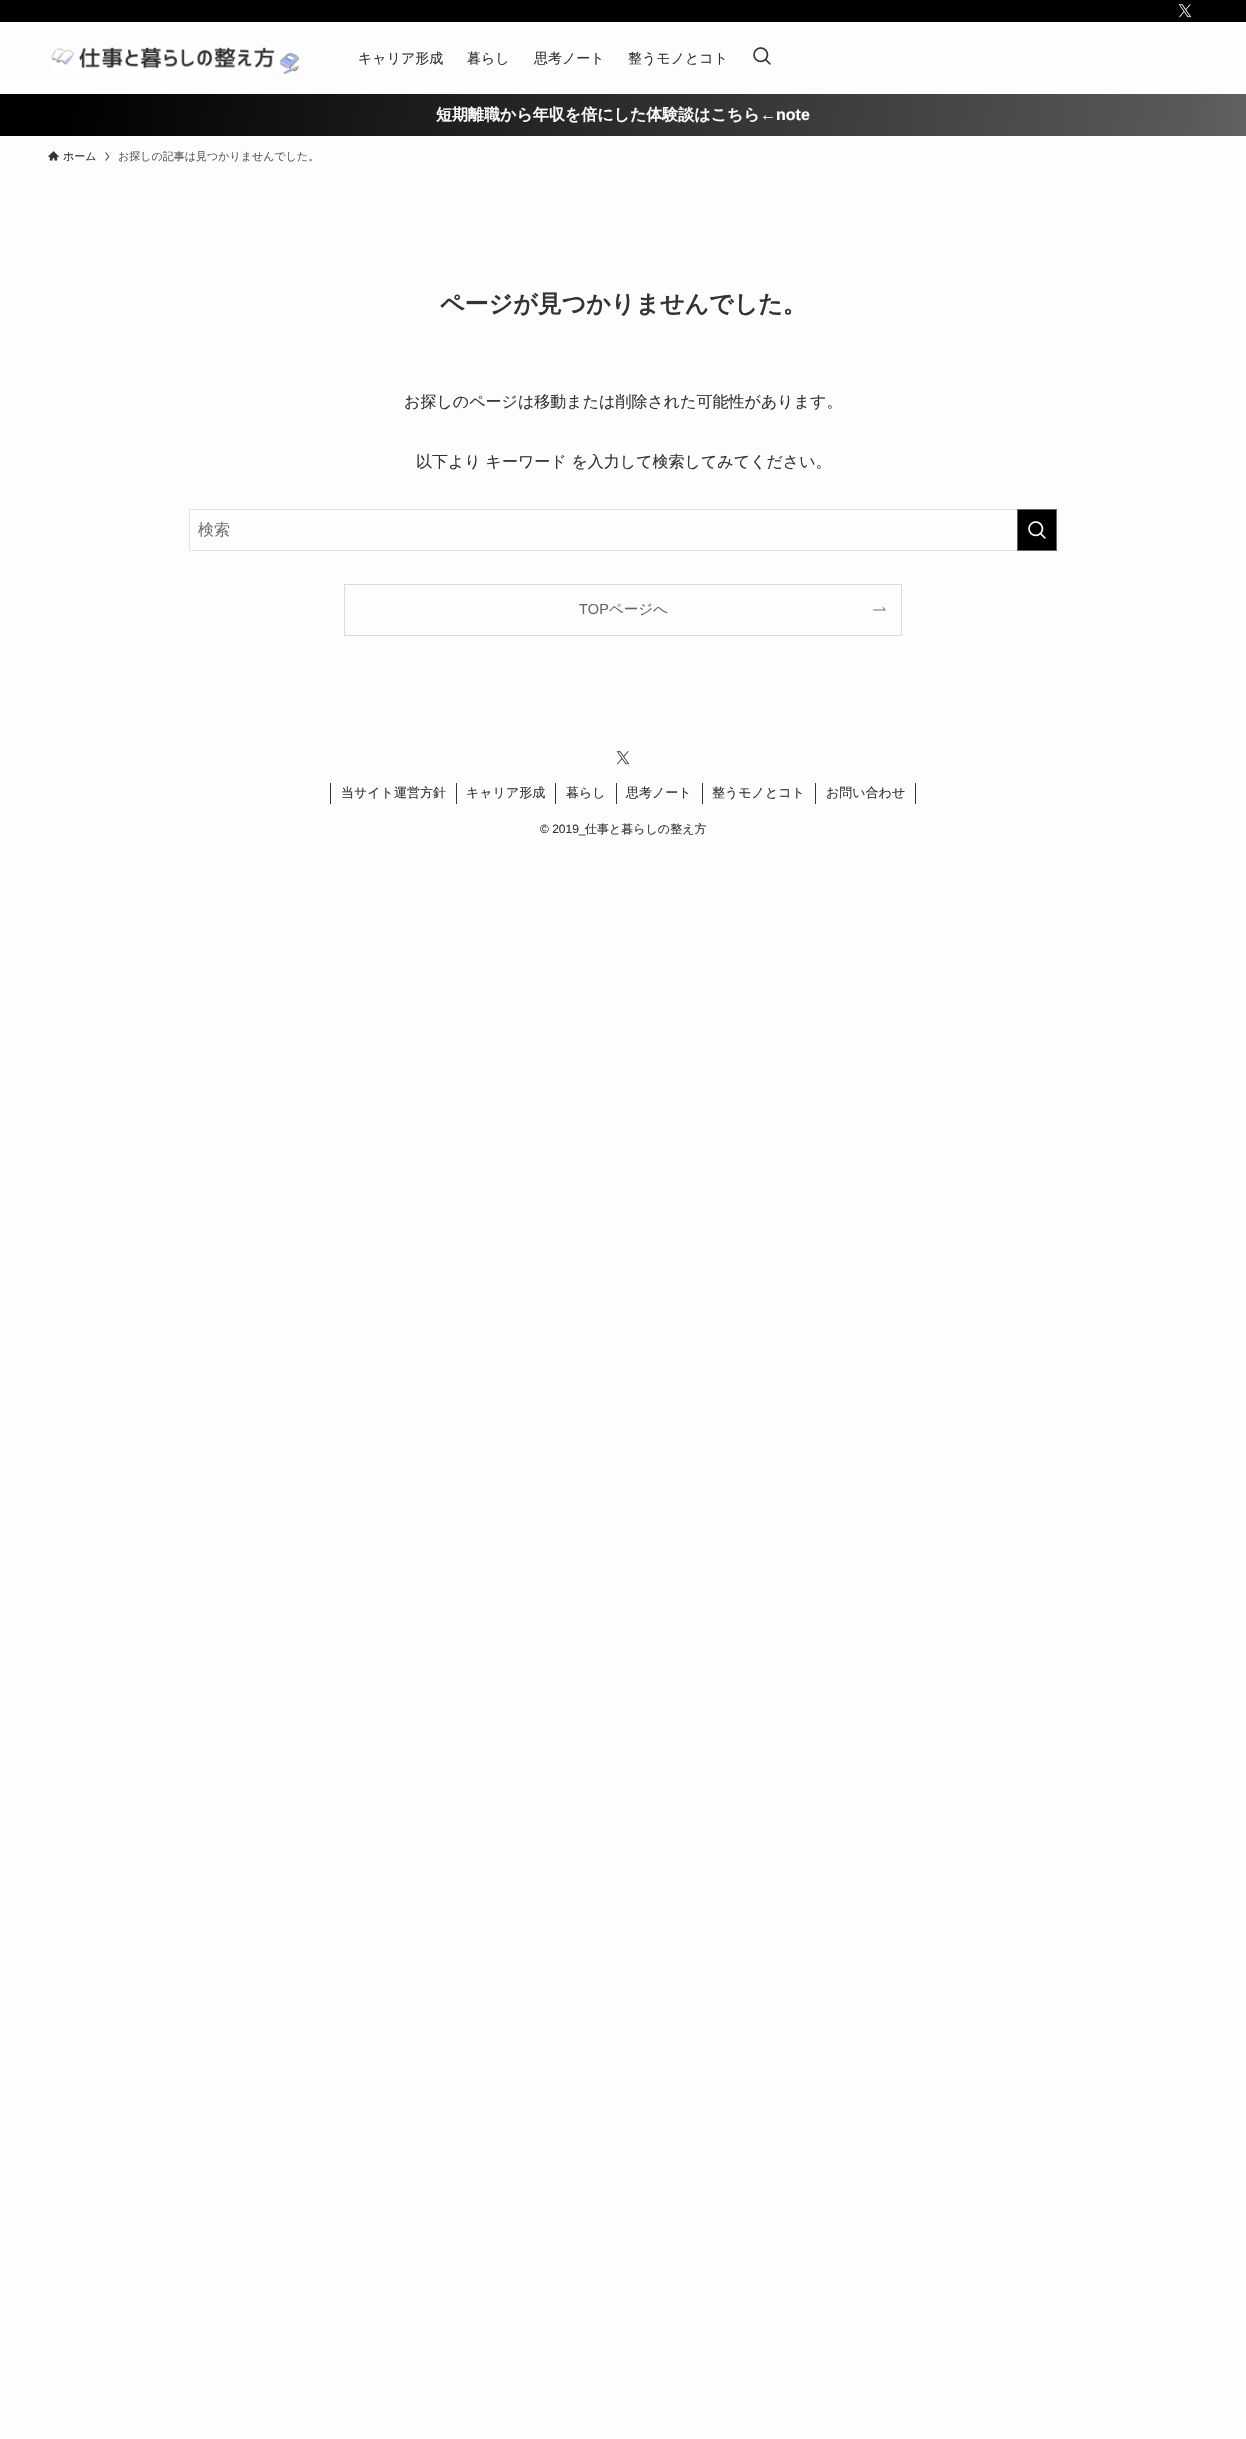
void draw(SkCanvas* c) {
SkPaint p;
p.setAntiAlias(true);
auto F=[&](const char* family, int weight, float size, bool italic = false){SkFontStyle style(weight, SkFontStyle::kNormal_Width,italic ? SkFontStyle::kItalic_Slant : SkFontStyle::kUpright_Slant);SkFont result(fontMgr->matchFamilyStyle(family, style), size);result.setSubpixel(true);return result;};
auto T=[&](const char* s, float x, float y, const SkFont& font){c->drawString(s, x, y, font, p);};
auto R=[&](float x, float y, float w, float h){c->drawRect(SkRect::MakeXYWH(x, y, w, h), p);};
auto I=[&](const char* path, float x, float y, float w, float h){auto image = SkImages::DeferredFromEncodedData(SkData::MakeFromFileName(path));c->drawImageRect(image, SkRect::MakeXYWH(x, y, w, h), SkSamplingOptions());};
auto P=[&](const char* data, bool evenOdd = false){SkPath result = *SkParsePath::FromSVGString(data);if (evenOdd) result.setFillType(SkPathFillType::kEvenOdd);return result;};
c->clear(0xfffdfdfd);
p.setColor(0xff000000);
R(0,0,1246,22);
I("1.png",1178,4,14,14);
I("2.png",51,47,248,27);
auto f1 = F("WenQuanYi Zen Hei",500,14);
p.setColor(0xff333333);
T("キャリア形成",358,63,f1);
T("暮らし",467,63,f1);
T("思考ノート",534,63,f1);
T("整うモノとコト",628,63,f1);
I("3.png",753,47,18,18);
{
const SkColor colors[] = {0xff000000,0xff000000,0xff595959,0xff626262};
const float stops[] = {0,.05,.95,1};
const SkPoint ends[] = {{15,7.8}, {1231,222}};
p.setShader(SkGradientShader::MakeLinear(ends, colors, stops, 4, SkTileMode::kClamp));
p.setAlpha(255);
}
R(0,94,1246,42);
auto f2 = F("WenQuanYi Zen Hei",700,16);
p.setShader(nullptr);
p.setColor(0xffffffff);
T("短期離職から年収を倍にした体験談はこちら",436,120,f2);
auto f3 = F("Liberation Sans",700,16);
T("←note",760,120,f3);
I("4.png",48,151,11,10);
auto f4 = F("WenQuanYi Zen Hei",500,11);
p.setColor(0xff333333);
T("ホーム",63,160,f4);
p.setColor(0xff5b5b5b);
c->drawPath(P("M106.5 152.5h-1.5l3 4l-3 4h1.5l3-4z"),p);
T("お探しの記事は見つかりませんでした。",118,160,f4);
auto f5 = F("WenQuanYi Zen Hei",700,24);
p.setColor(0xff333333);
T("ページが見つかりませんでした。",440,312,f5);
auto f6 = F("WenQuanYi Zen Hei",500,16);
T("お探しのページは移動または削除された可能性があります。",404,407,f6);
T("以下より キーワード を入力して検索してみてください。",416,467,f6);
p.setStroke(true);
p.setStrokeWidth(1);
p.setColor(0xffe3e3e3);
c->drawRect(SkRect::MakeXYWH(189.5,509.5,867,41),p);
p.setStroke(false);
p.setColor(0xff757575);
T("検索",198,535,f6);
p.setColor(0xff000000);
c->drawRect(SkRect::MakeXYWH(1017.5,509.5,39,41),p);
p.setStroke(true);
p.setColor(0xff646464);
c->drawRect(SkRect::MakeXYWH(1017.5,509.5,39,41),p);
I("5.png",1028,521,18,18);
p.setColor(0xffdcdcdc);
c->drawRect(SkRect::MakeXYWH(344.5,584.5,557,51),p);
auto f7 = F("Liberation Sans",400,14.5);
p.setStroke(false);
p.setColor(0xff666666);
T("TOP",579,614,f7);
auto f8 = F("WenQuanYi Zen Hei",500,14.5);
T("ページへ",609,614,f8);
I("6.png",873,607,13,4);
I("7.png",616,751,14,14);
p.setColor(0xff333333);
R(456,783,1,21);
R(330,783,1,21);
auto f9 = F("WenQuanYi Zen Hei",500,13);
T("当サイト運営方針",341,797,f9);
R(555,783,1,21);
T("キャリア形成",466,797,f9);
R(616,783,1,21);
T("暮らし",566,797,f9);
R(702,783,1,21);
T("思考ノート",626,797,f9);
R(815,783,1,21);
T("整うモノとコト",712,797,f9);
R(915,783,1,21);
T("お問い合わせ",826,797,f9);
auto f10 = F("Liberation Sans",400,12);
T("© 2019_",540,833,f10);
auto f11 = F("WenQuanYi Zen Hei",500,12);
T("仕事と暮らしの整え方",585,833,f11);
}
